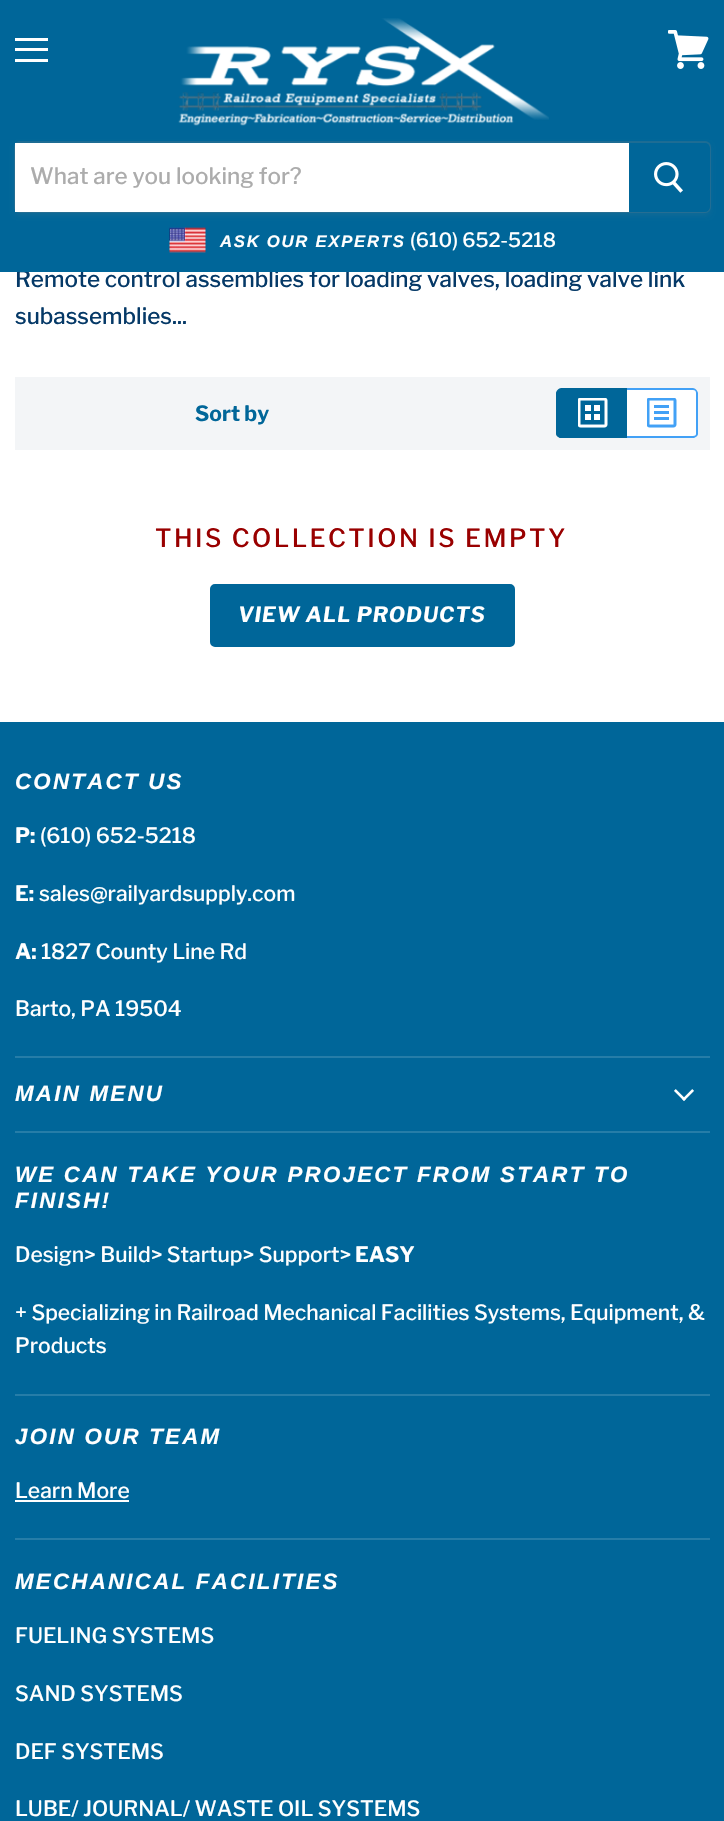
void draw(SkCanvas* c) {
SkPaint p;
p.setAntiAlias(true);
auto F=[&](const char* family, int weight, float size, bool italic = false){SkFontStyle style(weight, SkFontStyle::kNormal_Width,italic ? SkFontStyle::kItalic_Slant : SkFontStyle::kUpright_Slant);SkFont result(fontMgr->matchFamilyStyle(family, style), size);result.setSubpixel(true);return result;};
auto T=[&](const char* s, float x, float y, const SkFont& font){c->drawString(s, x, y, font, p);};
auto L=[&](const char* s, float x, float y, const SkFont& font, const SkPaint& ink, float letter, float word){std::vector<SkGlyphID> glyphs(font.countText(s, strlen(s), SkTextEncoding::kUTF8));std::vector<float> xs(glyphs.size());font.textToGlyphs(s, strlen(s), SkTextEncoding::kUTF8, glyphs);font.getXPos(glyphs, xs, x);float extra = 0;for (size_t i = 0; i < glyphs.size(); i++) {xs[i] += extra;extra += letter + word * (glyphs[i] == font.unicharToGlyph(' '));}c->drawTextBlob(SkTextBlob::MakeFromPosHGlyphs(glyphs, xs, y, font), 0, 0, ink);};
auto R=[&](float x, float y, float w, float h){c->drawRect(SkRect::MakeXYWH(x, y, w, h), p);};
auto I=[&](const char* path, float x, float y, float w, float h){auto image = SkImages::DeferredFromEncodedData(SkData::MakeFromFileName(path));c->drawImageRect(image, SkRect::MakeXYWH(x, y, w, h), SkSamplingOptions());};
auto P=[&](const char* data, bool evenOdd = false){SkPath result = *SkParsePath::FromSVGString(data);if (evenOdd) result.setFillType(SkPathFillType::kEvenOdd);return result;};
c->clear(0xffffffff);
auto f1 = F("Libre Franklin",500,22.5);
p.setColor(0xff053967);
T("Remote control assemblies for loading valves, loading valve link",15,287,f1);
p.setColor(0xff006699);
R(0,0,724,272);
p.setColor(0xffffffff);
R(15,38,33,3);
R(15,48,33,3);
R(15,59,33,3);
I("1.png",668,30,41,39);
I("2.png",178,18,371,108);
p.setColor(0x1c808080);
p.setMaskFilter(SkMaskFilter::MakeBlur(kNormal_SkBlurStyle, 2));
c->drawRoundRect(SkRect::MakeXYWH(14,144,697,72),6,6,p);
p.setMaskFilter(nullptr);
p.setStroke(true);
p.setStrokeWidth(2);
p.setColor(0x33808080);
c->drawRoundRect(SkRect::MakeXYWH(15,142,695,70),5,5,p);
p.setStroke(false);
p.setColor(0xffffffff);
R(15,143,614,69);
p.setColor(0xffacacac);
T("What are you looking for?",30,184,f1);
p.setColor(0xff006699);
c->drawPath(P("M630 144h75c2 0 4 2 4 4v59c0 2-2 4-4 4h-75z"),p);
p.setStroke(true);
c->drawPath(P("M630 144h75c2 0 4 2 4 4v59c0 2-2 4-4 4h-75z"),p);
I("3.png",654,162,29,31);
I("4.png",169,227,37,26);
auto f2 = F("Arimo",700,16.75,true);
p.setStroke(false);
p.setColor(0xffffffff);
L("ASK OUR EXPERTS",220,247,f2,p,1.7,0);
auto f3 = F("Libre Franklin",500,19.75);
T("(610) 652-5218",410,247,f3);
p.setColor(0xff053967);
T("subassemblies...",15,324,f1);
p.setColor(0xfff3f5f7);
R(15,377,695,73);
auto f4 = F("Libre Franklin",700,21.1);
p.setColor(0xff006699);
T("Sort by",195,421,f4);
c->drawPath(P("M562 389h65v49h-65c-3 0-5-2-5-5v-39c0-3 2-5 5-5z"),p);
c->drawPath(P("M561 388h66v50h-66c-2 0-5-2-5-4v-41c0-2 3-5 5-5zm0 2h66v46h-66c-2 0-3-1-3-2v-41c0-2 1-3 3-3z",true),p);
I("5.png",578,398,30,30);
p.setColor(0xffffffff);
c->drawPath(P("M627 389h66c3 0 5 2 5 5v39c0 3-2 5-5 5h-66z"),p);
p.setColor(0xff42a1f6);
c->drawPath(P("M627 388h66c2 0 5 3 5 5v41c0 2-3 4-5 4h-66zm0 2h66c2 0 3 1 3 3v41c0 1-1 2-3 2h-66z",true),p);
I("6.png",647,398,30,30);
auto f5 = F("Libre Franklin",500,25.1);
p.setColor(0xff990000);
L("THIS COLLECTION IS EMPTY",155,547,f5,p,2.5,0);
p.setColor(0xff006699);
c->drawRoundRect(SkRect::MakeXYWH(211,585,303,61),4,4,p);
p.setStroke(true);
c->drawRoundRect(SkRect::MakeXYWH(211,585,303,61),4,4,p);
auto f6 = F("Libre Franklin",700,21,true);
p.setStroke(false);
p.setColor(0xffffffff);
L("VIEW ALL PRODUCTS",238,622,f6,p,1,0);
p.setColor(0xff006699);
R(0,722,724,1099);
p.setColor(0xff267da8);
R(15,1056,695,2);
auto f7 = F("Arimo",700,22.3,true);
p.setColor(0xffffffff);
L("CONTACT US",15,789,f7,p,2.25,0);
T("P:",15,843,f4);
auto f8 = F("Libre Franklin",500,21.1);
T("(610) 652-5218",40,843,f8);
T("E:",15,901,f4);
T("sales@railyardsupply.com",39,901,f8);
T("A:",15,959,f4);
T("1827 County Line Rd",41,959,f8);
T("Barto, PA 19504",15,1016,f8);
p.setColor(0xff267da8);
R(15,1131,695,2);
p.setColor(0xffffffff);
L("MAIN MENU",15,1101,f7,p,2.25,0);
I("7.png",674,1089,20,12);
p.setColor(0xff267da8);
R(15,1394,695,2);
p.setColor(0xffffffff);
L("WE CAN TAKE YOUR PROJECT FROM START TO",15,1182,f7,p,2.25,0);
L("FINISH!",15,1208,f7,p,2.25,0);
T("Design> Build> Startup> Support>",15,1262,f8);
T("EASY",355,1262,f4);
T("+ Specializing in Railroad Mechanical Facilities Systems, Equipment, &",15,1320,f8);
T("Products",15,1353,f8);
p.setColor(0xff267da8);
R(15,1538,695,2);
p.setColor(0xffffffff);
L("JOIN OUR TEAM",15,1444,f7,p,2.25,0);
T("Learn More",15,1498,f8);
R(15,1500,114,2);
L("MECHANICAL FACILITIES",15,1589,f7,p,2.25,0);
T("FUELING SYSTEMS",15,1643,f8);
T("SAND SYSTEMS",15,1701,f8);
T("DEF SYSTEMS",15,1759,f8);
T("LUBE/ JOURNAL/ WASTE OIL SYSTEMS",15,1816,f8);
}
